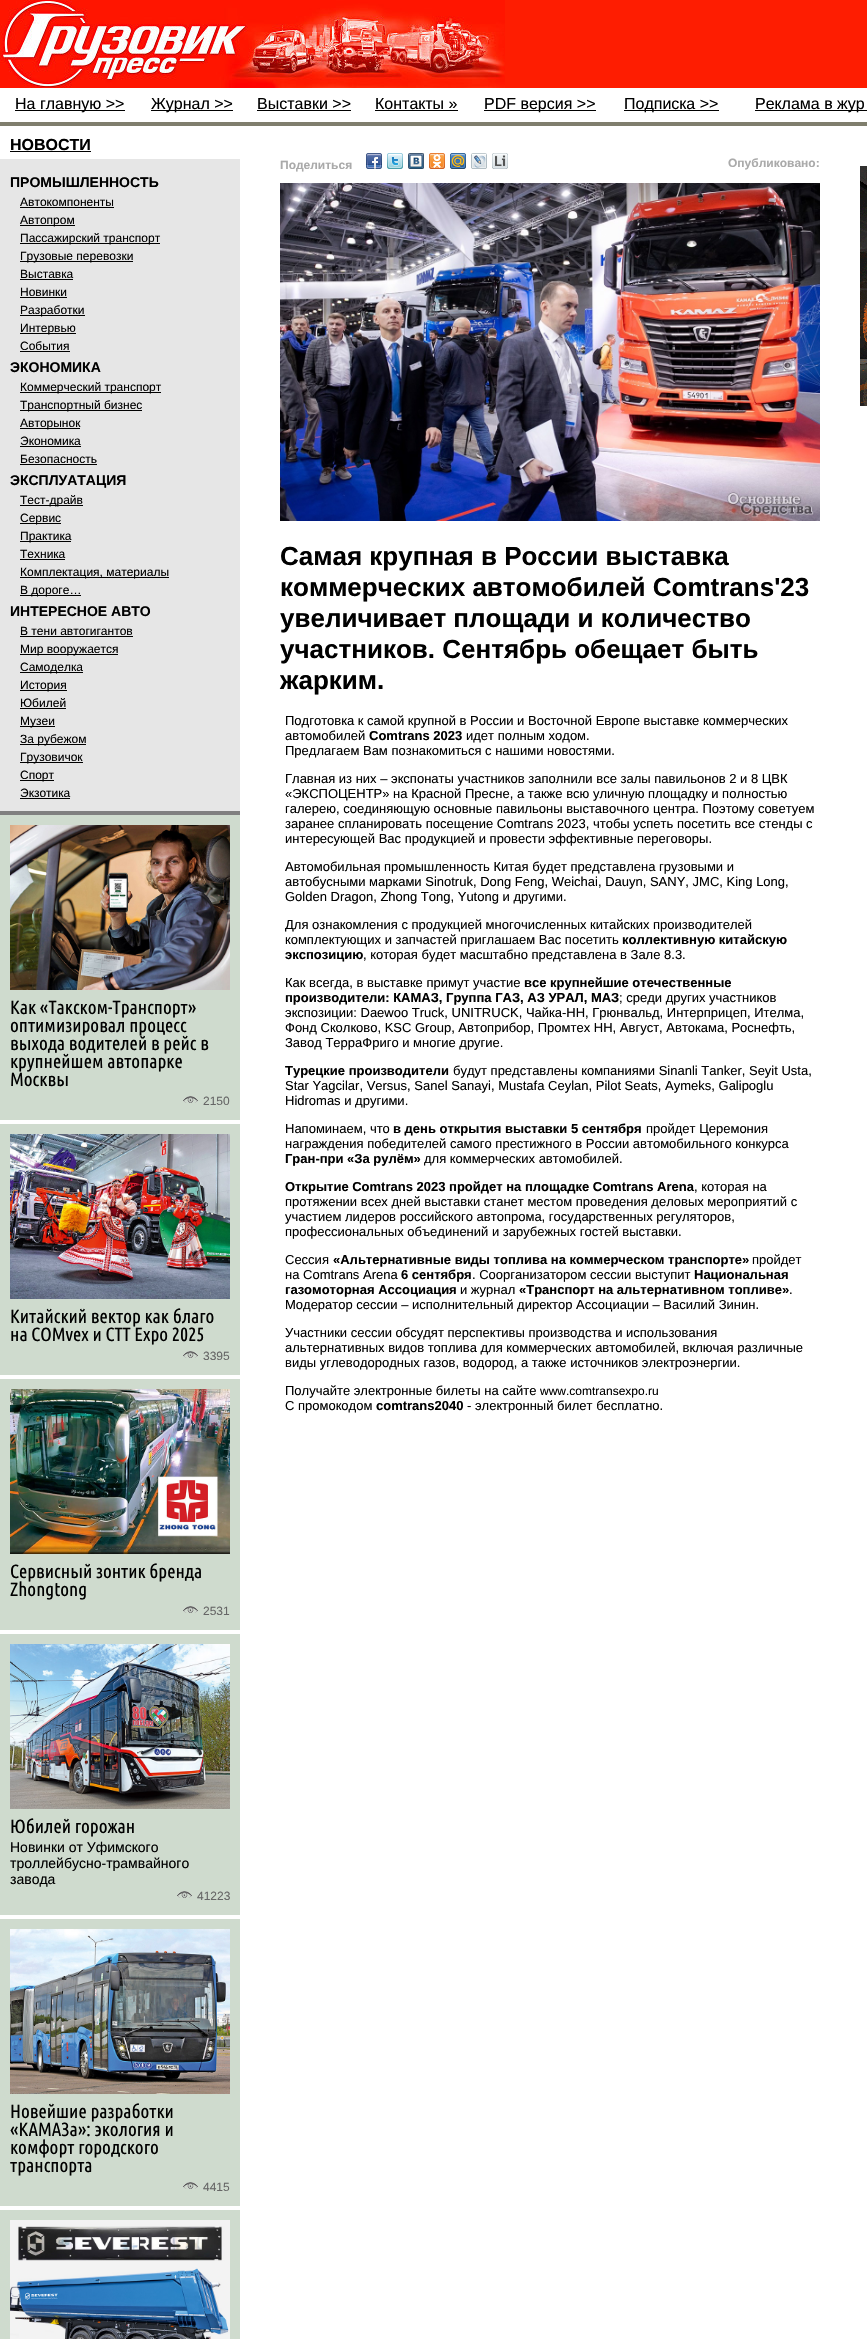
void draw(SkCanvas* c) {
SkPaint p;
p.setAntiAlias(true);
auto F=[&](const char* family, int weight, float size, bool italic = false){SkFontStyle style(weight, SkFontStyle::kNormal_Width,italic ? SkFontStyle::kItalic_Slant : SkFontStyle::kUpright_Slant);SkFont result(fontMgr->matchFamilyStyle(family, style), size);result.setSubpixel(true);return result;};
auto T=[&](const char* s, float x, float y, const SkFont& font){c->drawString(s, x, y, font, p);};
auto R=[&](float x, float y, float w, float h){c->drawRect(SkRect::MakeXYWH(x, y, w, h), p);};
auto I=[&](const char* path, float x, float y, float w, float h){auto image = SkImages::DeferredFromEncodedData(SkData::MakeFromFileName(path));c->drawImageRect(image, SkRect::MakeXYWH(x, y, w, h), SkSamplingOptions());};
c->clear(0xffffffff);
p.setColor(0xfffe1d01);
R(505,0,362,88);
I("1.png",0,0,505,88);
p.setColor(0xff7f7e6d);
R(0,122,867,4);
p.setColor(0xff000000);
R(15,110,110,1);
auto f1 = F("Liberation Sans",400,16);
T("На главную >>",15,109,f1);
R(151,110,82,1);
T("Журнал >>",151,109,f1);
T("Выставки >>",257,109,f1);
R(257,110,94,1);
T("Контакты »",375,109,f1);
R(375,110,83,1);
R(484,110,112,1);
T("PDF версия >>",484,109,f1);
R(624,110,95,1);
T("Подписка >>",624,109,f1);
R(755,110,112,1);
T("Реклама в жур",755,109,f1);
auto f2 = F("Liberation Sans",700,16);
T("НОВОСТИ",10,150,f2);
R(10,151,81,1);
p.setColor(0xffe6e6e6);
R(0,159,240,652);
auto f3 = F("Liberation Sans",700,14);
p.setColor(0xff000000);
T("ПРОМЫШЛЕННОСТЬ",10,187,f3);
auto f4 = F("Liberation Sans",400,12);
T("Автокомпоненты",20,206,f4);
R(20,207,94,1);
R(20,225,55,1);
T("Автопром",20,224,f4);
R(20,243,140,1);
T("Пассажирский транспорт",20,242,f4);
R(20,261,113,1);
T("Грузовые перевозки",20,260,f4);
T("Выставка",20,278,f4);
R(20,279,53,1);
T("Новинки",20,296,f4);
R(20,297,47,1);
R(20,315,65,1);
T("Разработки",20,314,f4);
R(20,333,56,1);
T("Интервью",20,332,f4);
T("События",20,350,f4);
R(20,351,50,1);
T("ЭКОНОМИКА",10,372,f3);
R(20,392,141,1);
T("Коммерческий транспорт",20,391,f4);
R(20,410,122,1);
T("Транспортный бизнес",20,409,f4);
R(20,428,60,1);
T("Авторынок",20,427,f4);
T("Экономика",20,445,f4);
R(20,446,61,1);
T("Безопасность",20,463,f4);
R(20,464,77,1);
T("ЭКСПЛУАТАЦИЯ",10,485,f3);
R(20,505,63,1);
T("Тест-драйв",20,504,f4);
R(20,523,41,1);
T("Сервис",20,522,f4);
R(20,541,51,1);
T("Практика",20,540,f4);
T("Техника",20,558,f4);
R(20,559,45,1);
R(20,577,149,1);
T("Комплектация, материалы",20,576,f4);
R(20,595,61,1);
T("В дороге…",20,594,f4);
T("ИНТЕРЕСНОЕ АВТО",10,616,f3);
T("В тени автогигантов",20,635,f4);
R(20,636,113,1);
R(20,654,98,1);
T("Мир вооружается",20,653,f4);
R(20,672,63,1);
T("Самоделка",20,671,f4);
R(20,690,47,1);
T("История",20,689,f4);
T("Юбилей",20,707,f4);
R(20,708,46,1);
R(20,726,35,1);
T("Музеи",20,725,f4);
R(20,744,66,1);
T("За рубежом",20,743,f4);
R(20,762,63,1);
T("Грузовичок",20,761,f4);
R(20,780,34,1);
T("Спорт",20,779,f4);
T("Экзотика",20,797,f4);
R(20,798,50,1);
p.setColor(0xff808080);
R(0,811,240,4);
p.setColor(0xffcfdbce);
R(0,815,240,305);
I("2.png",10,825,220,165);
auto f5 = F("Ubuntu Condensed",400,19);
p.setColor(0xff000000);
T("Как «Такском-Транспорт»",10,1014,f5);
T("оптимизировал процесс",10,1032,f5);
T("выхода водителей в рейс в",10,1050,f5);
T("крупнейшем автопарке",10,1068,f5);
T("Москвы",10,1086,f5);
I("3.png",183,1096,15,7);
p.setColor(0xff666666);
T("2150",203,1105,f4);
p.setColor(0xffcfdbce);
R(0,1124,240,251);
I("4.png",10,1134,220,165);
p.setColor(0xff000000);
T("Китайский вектор как благо",10,1323,f5);
T("на COMvex и СТТ Ехро 2025",10,1341,f5);
I("3.png",183,1351,15,7);
p.setColor(0xff666666);
T("3395",203,1360,f4);
p.setColor(0xffcfdbce);
R(0,1379,240,251);
I("5.png",10,1389,220,165);
p.setColor(0xff000000);
T("Сервисный зонтик бренда",10,1578,f5);
T("Zhongtong",10,1596,f5);
I("3.png",183,1606,15,7);
p.setColor(0xff666666);
T("2531",203,1615,f4);
p.setColor(0xffcfdbce);
R(0,1634,240,281);
I("6.png",10,1644,220,165);
p.setColor(0xff000000);
T("Юбилей горожан",10,1833,f5);
auto f6 = F("Liberation Sans",400,14);
T("Новинки от Уфимского",10,1852,f6);
T("троллейбусно-трамвайного",10,1868,f6);
T("завода",10,1884,f6);
I("3.png",177,1891,15,7);
p.setColor(0xff666666);
T("41223",197,1900,f4);
p.setColor(0xffcfdbce);
R(0,1919,240,287);
I("7.png",10,1929,220,165);
p.setColor(0xff000000);
T("Новейшие разработки",10,2118,f5);
T("«КАМАЗа»: экология и",10,2136,f5);
T("комфорт городского",10,2154,f5);
T("транспорта",10,2172,f5);
I("3.png",183,2182,15,7);
p.setColor(0xff666666);
T("4415",203,2191,f4);
p.setColor(0xffcfdbce);
R(0,2210,240,129);
I("8.png",10,2220,220,119);
auto f7 = F("Liberation Sans",700,12);
p.setColor(0xffaaaaaa);
T("Поделиться",280,169,f7);
I("9.png",366,153,16,16);
I("10.png",387,153,16,16);
I("11.png",408,153,16,16);
I("12.png",429,153,16,16);
I("13.png",450,153,16,16);
I("14.png",471,153,16,16);
I("15.png",492,153,16,16);
T("Опубликовано:",728,167,f7);
I("16.png",280,183,540,338);
auto f8 = F("Liberation Sans",700,26);
p.setColor(0xff000000);
T("Самая крупная в России выставка",280,565,f8);
T("коммерческих автомобилей Comtrans'23",280,596,f8);
T("увеличивает площади и количество",280,627,f8);
T("участников. Сентябрь обещает быть",280,658,f8);
T("жарким.",280,689,f8);
auto f9 = F("Liberation Sans",400,13);
T("Подготовка к самой крупной в России и Восточной Европе выставке коммерческих",285,725,f9);
T("автомобилей",285,740,f9);
auto f10 = F("Liberation Sans",700,13);
T("Comtrans 2023",369,740,f10);
T("идет полным ходом.",466,740,f9);
T("Предлагаем Вам познакомиться с нашими новостями.",285,755,f9);
T("Главная из них – экспонаты участников заполнили все залы павильонов 2 и 8 ЦВК",285,783,f9);
T("«ЭКСПОЦЕНТР» на Красной Пресне, а также всю уличную площадку и полностью",285,798,f9);
T("галерею, соединяющую основные павильоны выставочного центра. Поэтому советуем",285,813,f9);
T("заранее спланировать посещение Comtrans 2023, чтобы успеть посетить все стенды с",285,828,f9);
T("интересующей Вас продукцией и провести эффективные переговоры.",285,843,f9);
T("Автомобильная промышленность Китая будет представлена грузовыми и",285,871,f9);
T("автобусными марками Sinotruk, Dong Feng, Weichai, Dauyn, SANY, JMC, King Long,",285,886,f9);
T("Golden Dragon, Zhong Tong, Yutong и другими.",285,901,f9);
T("Для ознакомления с продукцией многочисленных китайских производителей",285,929,f9);
T("комплектующих и запчастей приглашаем Вас посетить",285,944,f9);
T("коллективную китайскую",622,944,f10);
T("экспозицию",285,959,f10);
T(", которая будет масштабно представлена в Зале 8.3.",363,959,f9);
T("Как всегда, в выставке примут участие",285,987,f9);
T("все крупнейшие отечественные",524,987,f10);
T("производители: КАМАЗ, Группа ГАЗ, АЗ УРАЛ, МАЗ",285,1002,f10);
T("; среди других участников",619,1002,f9);
T("экспозиции: Daewoo Truck, UNITRUCK, Чайка-НН, Грюнвальд, Интерприцеп, Ителма,",285,1017,f9);
T("Фонд Сколково, KSC Group, Автоприбор, Промтех НН, Август, Автокама, Роснефть,",285,1032,f9);
T("Завод ТерраФриго и многие другие.",285,1047,f9);
T("Турецкие производители",285,1075,f10);
T("будут представлены компаниями Sinanli Tanker, Seyit Usta,",453,1075,f9);
T("Star Yagcilar, Versus, Sanel Sanayi, Mustafa Ceylan, Pilot Seats, Aymeks, Galipoglu",285,1090,f9);
T("Hidromas и другими.",285,1105,f9);
T("Напоминаем, что",285,1133,f9);
T("в день открытия выставки 5 сентября",393,1133,f10);
T("пройдет Церемония",646,1133,f9);
T("награждения победителей самого престижного в России автомобильного конкурса",285,1148,f9);
T("Гран-при «За рулём»",285,1163,f10);
T("для коммерческих автомобилей.",424,1163,f9);
T("Открытие Comtrans 2023 пройдет на площадке Comtrans Arena",285,1191,f10);
T(", которая на",694,1191,f9);
T("протяжении всех дней выставки станет местом проведения деловых мероприятий c",285,1206,f9);
T("участием лидеров российского автопрома, государственных регуляторов,",285,1221,f9);
T("профессиональных объединений и зарубежных гостей выставки.",285,1236,f9);
T("Сессия",285,1264,f9);
T("«Альтернативные виды топлива на коммерческом транспорте»",333,1264,f10);
T("пройдет",752,1264,f9);
T("на Comtrans Arena",285,1279,f9);
T("6 сентября",401,1279,f10);
T(". Соорганизатором сессии выступит",472,1279,f9);
T("Национальная",694,1279,f10);
T("газомоторная Ассоциация",285,1294,f10);
T("и журнал",460,1294,f9);
T("«Транспорт на альтернативном топливе»",519,1294,f10);
T(".",789,1294,f9);
T("Модератор сессии – исполнительный директор Ассоциации – Василий Зинин.",285,1309,f9);
T("Участники сессии обсудят перспективы производства и использования",285,1337,f9);
T("альтернативных видов топлива для коммерческих автомобилей, включая различные",285,1352,f9);
T("виды углеводородных газов, водород, а также источников электроэнергии.",285,1367,f9);
T("Получайте электронные билеты на сайте",285,1395,f9);
T("www.comtransexpo.ru",540,1395,f4);
T("С промокодом",285,1410,f9);
T("comtrans2040",376,1410,f10);
T("- электронный билет бесплатно.",467,1410,f9);
I("17.png",860,166,7,240);
}
